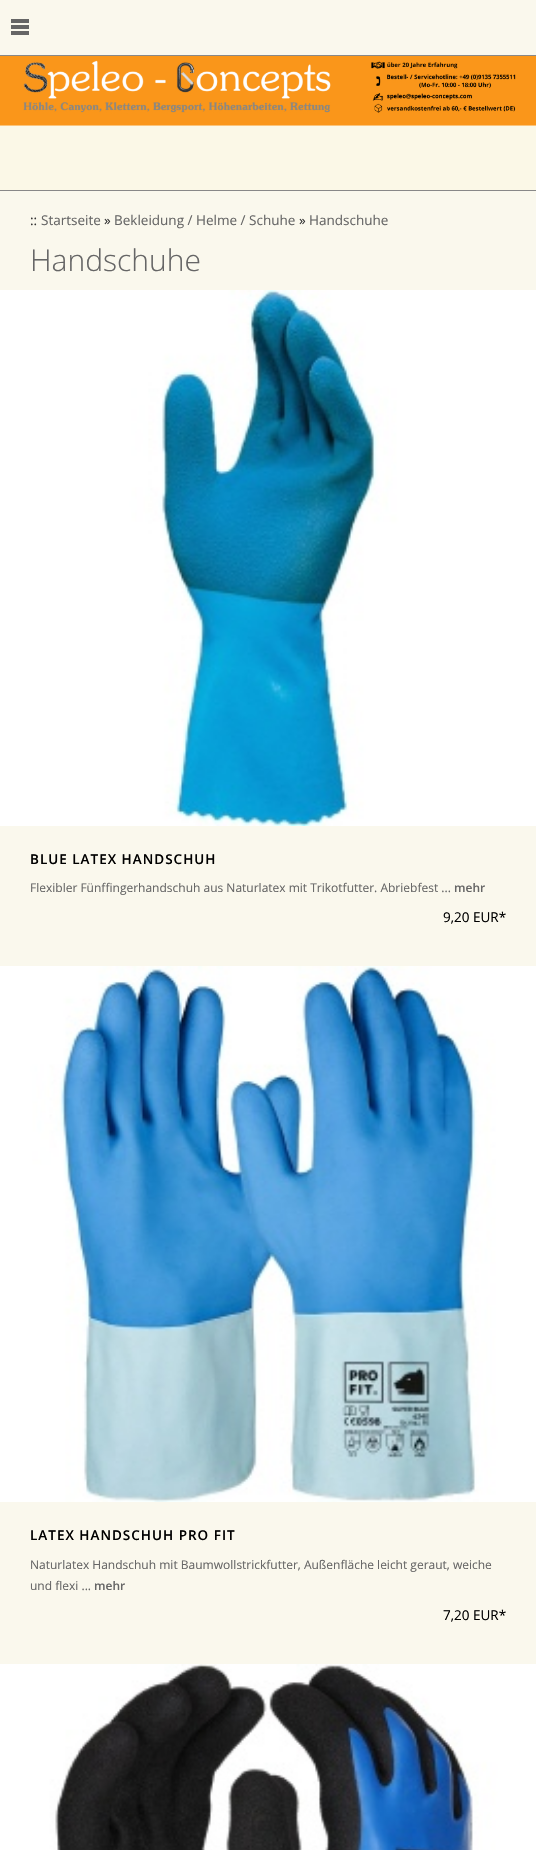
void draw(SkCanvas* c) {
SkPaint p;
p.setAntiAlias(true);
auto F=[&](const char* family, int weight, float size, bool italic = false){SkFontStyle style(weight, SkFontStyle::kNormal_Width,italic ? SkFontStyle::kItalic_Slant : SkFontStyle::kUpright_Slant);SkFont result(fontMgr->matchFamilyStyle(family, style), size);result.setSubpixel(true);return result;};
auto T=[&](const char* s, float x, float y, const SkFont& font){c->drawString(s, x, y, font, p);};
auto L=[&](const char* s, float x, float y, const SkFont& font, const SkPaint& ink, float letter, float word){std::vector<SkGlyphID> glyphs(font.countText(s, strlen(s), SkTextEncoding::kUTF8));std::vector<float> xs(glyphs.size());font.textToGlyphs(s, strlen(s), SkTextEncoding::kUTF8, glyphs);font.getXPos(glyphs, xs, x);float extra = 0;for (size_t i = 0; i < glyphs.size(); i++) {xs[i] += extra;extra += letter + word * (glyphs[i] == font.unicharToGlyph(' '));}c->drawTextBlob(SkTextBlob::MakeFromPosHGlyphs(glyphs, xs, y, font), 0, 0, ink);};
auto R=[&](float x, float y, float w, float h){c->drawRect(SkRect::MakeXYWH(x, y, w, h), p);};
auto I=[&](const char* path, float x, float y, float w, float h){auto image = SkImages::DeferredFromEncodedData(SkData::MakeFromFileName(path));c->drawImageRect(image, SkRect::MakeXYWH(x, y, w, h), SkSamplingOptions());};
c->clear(0xfffa9619);
p.setColor(0xfffaf8ed);
R(0,0,536,55);
I("1.png",11,19,18,16);
p.setColor(0xff888888);
R(0,55,536,1);
R(0,190,536,1);
I("2.png",0,60,536,130);
p.setColor(0xfffaf8ed);
R(0,191,536,1473);
auto f1 = F("Open Sans",400,13.5);
p.setColor(0xff333333);
T("::",30,225,f1);
p.setColor(0xff666666);
T("Startseite",41,225,f1);
p.setColor(0xff333333);
T("»",104,225,f1);
p.setColor(0xff666666);
T("Bekleidung / Helme / Schuhe",114,225,f1);
p.setColor(0xff333333);
T("»",299,225,f1);
p.setColor(0xff666666);
T("Handschuhe",309,225,f1);
auto f2 = F("Open Sans",300,30);
T("Handschuhe",30,271,f2);
I("3.png",0,290,536,536);
auto f3 = F("Open Sans",600,13.5);
p.setColor(0xff000000);
L("BLUE LATEX HANDSCHUH",30,864,f3,p,1,0);
auto f4 = F("Open Sans",400,12);
p.setColor(0xff666666);
T("Flexibler Fünffingerhandschuh aus Naturlatex mit Trikotfutter. Abriebfest ...",30,892,f4);
auto f5 = F("Open Sans",600,12);
T("mehr",454,892,f5);
p.setColor(0xff000000);
T("9,20 EUR*",443,922,f1);
I("4.png",0,966,536,536);
L("LATEX HANDSCHUH PRO FIT",30,1540,f3,p,1,0);
p.setColor(0xff666666);
T("Naturlatex Handschuh mit Baumwollstrickfutter, Außenfläche leicht geraut, weiche",30,1569,f4);
T("und flexi ...",30,1590,f4);
T("mehr",94,1590,f5);
p.setColor(0xff000000);
T("7,20 EUR*",443,1620,f1);
I("5.png",0,1664,536,186);
}
